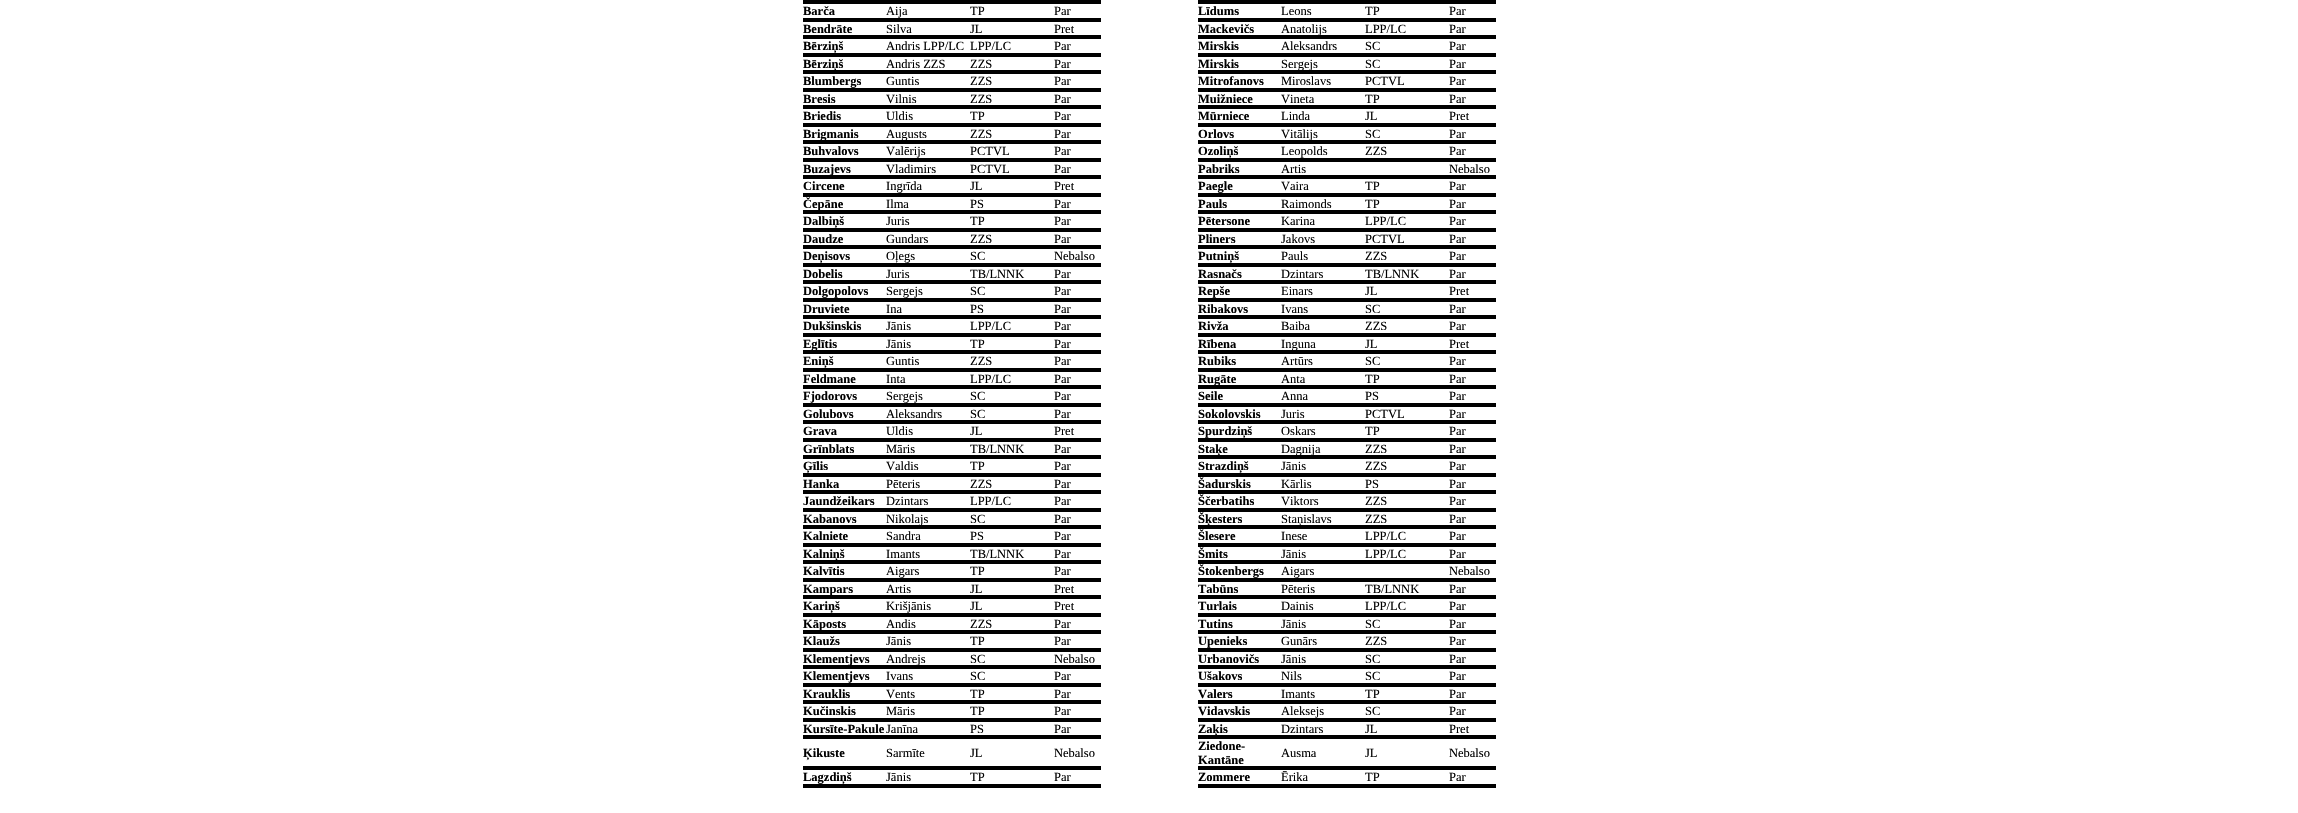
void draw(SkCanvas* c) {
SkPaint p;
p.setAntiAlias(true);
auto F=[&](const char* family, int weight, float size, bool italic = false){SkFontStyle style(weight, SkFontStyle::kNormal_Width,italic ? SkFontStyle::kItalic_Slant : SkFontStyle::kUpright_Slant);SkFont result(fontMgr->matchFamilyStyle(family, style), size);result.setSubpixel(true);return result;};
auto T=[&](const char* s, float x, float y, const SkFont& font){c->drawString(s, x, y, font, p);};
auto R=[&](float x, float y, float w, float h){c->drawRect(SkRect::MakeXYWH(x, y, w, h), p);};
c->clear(0xffffffff);
p.setColor(0xff000000);
R(803,0,298,4);
R(1198,0,298,4);
R(803,18,298,4);
auto f1 = F("Liberation Serif",700,12.5);
T("Barča",803,15,f1);
auto f2 = F("Liberation Serif",400,12.5);
T("Aija",886,15,f2);
T("TP",970,15,f2);
T("Par",1054,15,f2);
R(1198,18,298,4);
T("Līdums",1198,15,f1);
T("Leons",1281,15,f2);
T("TP",1365,15,f2);
T("Par",1449,15,f2);
R(803,35,298,4);
T("Bendrāte",803,33,f1);
T("Silva",886,33,f2);
T("JL",970,33,f2);
T("Pret",1054,33,f2);
R(1198,35,298,4);
T("Mackevičs",1198,33,f1);
T("Anatolijs",1281,33,f2);
T("LPP/LC",1365,33,f2);
T("Par",1449,33,f2);
R(803,53,298,4);
T("Bērziņš",803,50,f1);
T("Andris LPP/LC",886,50,f2);
T("LPP/LC",970,50,f2);
T("Par",1054,50,f2);
R(1198,53,298,4);
T("Mirskis",1198,50,f1);
T("Aleksandrs",1281,50,f2);
T("SC",1365,50,f2);
T("Par",1449,50,f2);
R(803,70,298,4);
T("Bērziņš",803,68,f1);
T("Andris ZZS",886,68,f2);
T("ZZS",970,68,f2);
T("Par",1054,68,f2);
R(1198,70,298,4);
T("Mirskis",1198,68,f1);
T("Sergejs",1281,68,f2);
T("SC",1365,68,f2);
T("Par",1449,68,f2);
R(803,88,298,4);
T("Blumbergs",803,85,f1);
T("Guntis",886,85,f2);
T("ZZS",970,85,f2);
T("Par",1054,85,f2);
R(1198,88,298,4);
T("Mitrofanovs",1198,85,f1);
T("Miroslavs",1281,85,f2);
T("PCTVL",1365,85,f2);
T("Par",1449,85,f2);
R(803,105,298,4);
T("Bresis",803,103,f1);
T("Vilnis",886,103,f2);
T("ZZS",970,103,f2);
T("Par",1054,103,f2);
R(1198,105,298,4);
T("Muižniece",1198,103,f1);
T("Vineta",1281,103,f2);
T("TP",1365,103,f2);
T("Par",1449,103,f2);
R(803,123,298,4);
T("Briedis",803,120,f1);
T("Uldis",886,120,f2);
T("TP",970,120,f2);
T("Par",1054,120,f2);
R(1198,123,298,4);
T("Mūrniece",1198,120,f1);
T("Linda",1281,120,f2);
T("JL",1365,120,f2);
T("Pret",1449,120,f2);
R(803,140,298,4);
T("Brigmanis",803,138,f1);
T("Augusts",886,138,f2);
T("ZZS",970,138,f2);
T("Par",1054,138,f2);
R(1198,140,298,4);
T("Orlovs",1198,138,f1);
T("Vitālijs",1281,138,f2);
T("SC",1365,138,f2);
T("Par",1449,138,f2);
R(803,158,298,4);
T("Buhvalovs",803,155,f1);
T("Valērijs",886,155,f2);
T("PCTVL",970,155,f2);
T("Par",1054,155,f2);
R(1198,158,298,4);
T("Ozoliņš",1198,155,f1);
T("Leopolds",1281,155,f2);
T("ZZS",1365,155,f2);
T("Par",1449,155,f2);
R(803,175,298,4);
T("Buzajevs",803,173,f1);
T("Vladimirs",886,173,f2);
T("PCTVL",970,173,f2);
T("Par",1054,173,f2);
R(1198,175,298,4);
T("Pabriks",1198,173,f1);
T("Artis",1281,173,f2);
T("Nebalso",1449,173,f2);
R(803,193,298,4);
T("Circene",803,190,f1);
T("Ingrīda",886,190,f2);
T("JL",970,190,f2);
T("Pret",1054,190,f2);
R(1198,193,298,4);
T("Paegle",1198,190,f1);
T("Vaira",1281,190,f2);
T("TP",1365,190,f2);
T("Par",1449,190,f2);
R(803,210,298,4);
T("Čepāne",803,208,f1);
T("Ilma",886,208,f2);
T("PS",970,208,f2);
T("Par",1054,208,f2);
R(1198,210,298,4);
T("Pauls",1198,208,f1);
T("Raimonds",1281,208,f2);
T("TP",1365,208,f2);
T("Par",1449,208,f2);
R(803,228,298,4);
T("Dalbiņš",803,225,f1);
T("Juris",886,225,f2);
T("TP",970,225,f2);
T("Par",1054,225,f2);
R(1198,228,298,4);
T("Pētersone",1198,225,f1);
T("Karina",1281,225,f2);
T("LPP/LC",1365,225,f2);
T("Par",1449,225,f2);
R(803,245,298,4);
T("Daudze",803,243,f1);
T("Gundars",886,243,f2);
T("ZZS",970,243,f2);
T("Par",1054,243,f2);
R(1198,245,298,4);
T("Pliners",1198,243,f1);
T("Jakovs",1281,243,f2);
T("PCTVL",1365,243,f2);
T("Par",1449,243,f2);
R(803,263,298,4);
T("Deņisovs",803,260,f1);
T("Oļegs",886,260,f2);
T("SC",970,260,f2);
T("Nebalso",1054,260,f2);
R(1198,263,298,4);
T("Putniņš",1198,260,f1);
T("Pauls",1281,260,f2);
T("ZZS",1365,260,f2);
T("Par",1449,260,f2);
R(803,280,298,4);
T("Dobelis",803,278,f1);
T("Juris",886,278,f2);
T("TB/LNNK",970,278,f2);
T("Par",1054,278,f2);
R(1198,280,298,4);
T("Rasnačs",1198,278,f1);
T("Dzintars",1281,278,f2);
T("TB/LNNK",1365,278,f2);
T("Par",1449,278,f2);
R(803,298,298,4);
T("Dolgopolovs",803,295,f1);
T("Sergejs",886,295,f2);
T("SC",970,295,f2);
T("Par",1054,295,f2);
R(1198,298,298,4);
T("Repše",1198,295,f1);
T("Einars",1281,295,f2);
T("JL",1365,295,f2);
T("Pret",1449,295,f2);
R(803,315,298,4);
T("Druviete",803,313,f1);
T("Ina",886,313,f2);
T("PS",970,313,f2);
T("Par",1054,313,f2);
R(1198,315,298,4);
T("Ribakovs",1198,313,f1);
T("Ivans",1281,313,f2);
T("SC",1365,313,f2);
T("Par",1449,313,f2);
R(803,333,298,4);
T("Dukšinskis",803,330,f1);
T("Jānis",886,330,f2);
T("LPP/LC",970,330,f2);
T("Par",1054,330,f2);
R(1198,333,298,4);
T("Rivža",1198,330,f1);
T("Baiba",1281,330,f2);
T("ZZS",1365,330,f2);
T("Par",1449,330,f2);
R(803,350,298,4);
T("Eglītis",803,348,f1);
T("Jānis",886,348,f2);
T("TP",970,348,f2);
T("Par",1054,348,f2);
R(1198,350,298,4);
T("Rībena",1198,348,f1);
T("Inguna",1281,348,f2);
T("JL",1365,348,f2);
T("Pret",1449,348,f2);
R(803,368,298,4);
T("Eniņš",803,365,f1);
T("Guntis",886,365,f2);
T("ZZS",970,365,f2);
T("Par",1054,365,f2);
R(1198,368,298,4);
T("Rubiks",1198,365,f1);
T("Artūrs",1281,365,f2);
T("SC",1365,365,f2);
T("Par",1449,365,f2);
R(803,385,298,4);
T("Feldmane",803,383,f1);
T("Inta",886,383,f2);
T("LPP/LC",970,383,f2);
T("Par",1054,383,f2);
R(1198,385,298,4);
T("Rugāte",1198,383,f1);
T("Anta",1281,383,f2);
T("TP",1365,383,f2);
T("Par",1449,383,f2);
R(803,403,298,4);
T("Fjodorovs",803,400,f1);
T("Sergejs",886,400,f2);
T("SC",970,400,f2);
T("Par",1054,400,f2);
R(1198,403,298,4);
T("Seile",1198,400,f1);
T("Anna",1281,400,f2);
T("PS",1365,400,f2);
T("Par",1449,400,f2);
R(803,420,298,4);
T("Golubovs",803,418,f1);
T("Aleksandrs",886,418,f2);
T("SC",970,418,f2);
T("Par",1054,418,f2);
R(1198,420,298,4);
T("Sokolovskis",1198,418,f1);
T("Juris",1281,418,f2);
T("PCTVL",1365,418,f2);
T("Par",1449,418,f2);
R(803,438,298,4);
T("Grava",803,435,f1);
T("Uldis",886,435,f2);
T("JL",970,435,f2);
T("Pret",1054,435,f2);
R(1198,438,298,4);
T("Spurdziņš",1198,435,f1);
T("Oskars",1281,435,f2);
T("TP",1365,435,f2);
T("Par",1449,435,f2);
R(803,455,298,4);
T("Grīnblats",803,453,f1);
T("Māris",886,453,f2);
T("TB/LNNK",970,453,f2);
T("Par",1054,453,f2);
R(1198,455,298,4);
T("Staķe",1198,453,f1);
T("Dagnija",1281,453,f2);
T("ZZS",1365,453,f2);
T("Par",1449,453,f2);
R(803,473,298,4);
T("Ģīlis",803,470,f1);
T("Valdis",886,470,f2);
T("TP",970,470,f2);
T("Par",1054,470,f2);
R(1198,473,298,4);
T("Strazdiņš",1198,470,f1);
T("Jānis",1281,470,f2);
T("ZZS",1365,470,f2);
T("Par",1449,470,f2);
R(803,490,298,4);
T("Hanka",803,488,f1);
T("Pēteris",886,488,f2);
T("ZZS",970,488,f2);
T("Par",1054,488,f2);
R(1198,490,298,4);
T("Šadurskis",1198,488,f1);
T("Kārlis",1281,488,f2);
T("PS",1365,488,f2);
T("Par",1449,488,f2);
R(803,508,298,4);
T("Jaundžeikars",803,505,f1);
T("Dzintars",886,505,f2);
T("LPP/LC",970,505,f2);
T("Par",1054,505,f2);
R(1198,508,298,4);
T("Ščerbatihs",1198,505,f1);
T("Viktors",1281,505,f2);
T("ZZS",1365,505,f2);
T("Par",1449,505,f2);
R(803,525,298,4);
T("Kabanovs",803,523,f1);
T("Nikolajs",886,523,f2);
T("SC",970,523,f2);
T("Par",1054,523,f2);
R(1198,525,298,4);
T("Šķesters",1198,523,f1);
T("Staņislavs",1281,523,f2);
T("ZZS",1365,523,f2);
T("Par",1449,523,f2);
R(803,543,298,4);
T("Kalniete",803,540,f1);
T("Sandra",886,540,f2);
T("PS",970,540,f2);
T("Par",1054,540,f2);
R(1198,543,298,4);
T("Šlesere",1198,540,f1);
T("Inese",1281,540,f2);
T("LPP/LC",1365,540,f2);
T("Par",1449,540,f2);
R(803,560,298,4);
T("Kalniņš",803,558,f1);
T("Imants",886,558,f2);
T("TB/LNNK",970,558,f2);
T("Par",1054,558,f2);
R(1198,560,298,4);
T("Šmits",1198,558,f1);
T("Jānis",1281,558,f2);
T("LPP/LC",1365,558,f2);
T("Par",1449,558,f2);
R(803,578,298,4);
T("Kalvītis",803,575,f1);
T("Aigars",886,575,f2);
T("TP",970,575,f2);
T("Par",1054,575,f2);
R(1198,578,298,4);
T("Štokenbergs",1198,575,f1);
T("Aigars",1281,575,f2);
T("Nebalso",1449,575,f2);
R(803,595,298,4);
T("Kampars",803,593,f1);
T("Artis",886,593,f2);
T("JL",970,593,f2);
T("Pret",1054,593,f2);
R(1198,595,298,4);
T("Tabūns",1198,593,f1);
T("Pēteris",1281,593,f2);
T("TB/LNNK",1365,593,f2);
T("Par",1449,593,f2);
R(803,613,298,4);
T("Kariņš",803,610,f1);
T("Krišjānis",886,610,f2);
T("JL",970,610,f2);
T("Pret",1054,610,f2);
R(1198,613,298,4);
T("Turlais",1198,610,f1);
T("Dainis",1281,610,f2);
T("LPP/LC",1365,610,f2);
T("Par",1449,610,f2);
R(803,630,298,4);
T("Kāposts",803,628,f1);
T("Andis",886,628,f2);
T("ZZS",970,628,f2);
T("Par",1054,628,f2);
R(1198,630,298,4);
T("Tutins",1198,628,f1);
T("Jānis",1281,628,f2);
T("SC",1365,628,f2);
T("Par",1449,628,f2);
R(803,648,298,4);
T("Klaužs",803,645,f1);
T("Jānis",886,645,f2);
T("TP",970,645,f2);
T("Par",1054,645,f2);
R(1198,648,298,4);
T("Upenieks",1198,645,f1);
T("Gunārs",1281,645,f2);
T("ZZS",1365,645,f2);
T("Par",1449,645,f2);
R(803,665,298,4);
T("Klementjevs",803,663,f1);
T("Andrejs",886,663,f2);
T("SC",970,663,f2);
T("Nebalso",1054,663,f2);
R(1198,665,298,4);
T("Urbanovičs",1198,663,f1);
T("Jānis",1281,663,f2);
T("SC",1365,663,f2);
T("Par",1449,663,f2);
R(803,683,298,4);
T("Klementjevs",803,680,f1);
T("Ivans",886,680,f2);
T("SC",970,680,f2);
T("Par",1054,680,f2);
R(1198,683,298,4);
T("Ušakovs",1198,680,f1);
T("Nils",1281,680,f2);
T("SC",1365,680,f2);
T("Par",1449,680,f2);
R(803,700,298,4);
T("Krauklis",803,698,f1);
T("Vents",886,698,f2);
T("TP",970,698,f2);
T("Par",1054,698,f2);
R(1198,700,298,4);
T("Valers",1198,698,f1);
T("Imants",1281,698,f2);
T("TP",1365,698,f2);
T("Par",1449,698,f2);
R(803,718,298,4);
T("Kučinskis",803,715,f1);
T("Māris",886,715,f2);
T("TP",970,715,f2);
T("Par",1054,715,f2);
R(1198,718,298,4);
T("Vidavskis",1198,715,f1);
T("Aleksejs",1281,715,f2);
T("SC",1365,715,f2);
T("Par",1449,715,f2);
R(803,735,298,4);
T("Kursīte-Pakule",803,733,f1);
T("Janīna",886,733,f2);
T("PS",970,733,f2);
T("Par",1054,733,f2);
R(1198,735,298,4);
T("Zaķis",1198,733,f1);
T("Dzintars",1281,733,f2);
T("JL",1365,733,f2);
T("Pret",1449,733,f2);
R(803,766,298,4);
T("Ķikuste",803,757,f1);
T("Sarmīte",886,757,f2);
T("JL",970,757,f2);
T("Nebalso",1054,757,f2);
R(1198,766,298,4);
T("Ziedone-",1198,750,f1);
T("Kantāne",1198,764,f1);
T("Ausma",1281,757,f2);
T("JL",1365,757,f2);
T("Nebalso",1449,757,f2);
R(803,784,298,4);
T("Lagzdiņš",803,781,f1);
T("Jānis",886,781,f2);
T("TP",970,781,f2);
T("Par",1054,781,f2);
R(1198,784,298,4);
T("Zommere",1198,781,f1);
T("Ērika",1281,781,f2);
T("TP",1365,781,f2);
T("Par",1449,781,f2);
}
